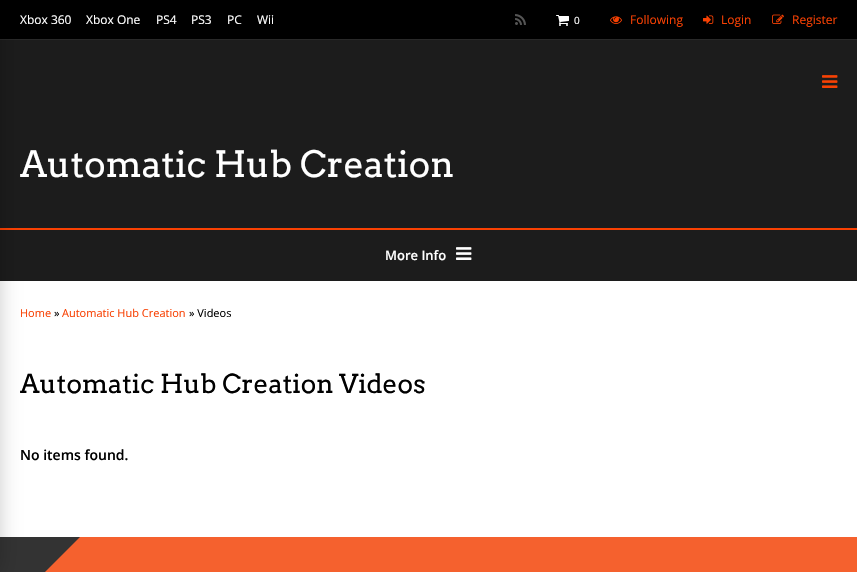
void draw(SkCanvas* c) {
SkPaint p;
p.setAntiAlias(true);
auto F=[&](const char* family, int weight, float size, bool italic = false){SkFontStyle style(weight, SkFontStyle::kNormal_Width,italic ? SkFontStyle::kItalic_Slant : SkFontStyle::kUpright_Slant);SkFont result(fontMgr->matchFamilyStyle(family, style), size);result.setSubpixel(true);return result;};
auto T=[&](const char* s, float x, float y, const SkFont& font){c->drawString(s, x, y, font, p);};
auto R=[&](float x, float y, float w, float h){c->drawRect(SkRect::MakeXYWH(x, y, w, h), p);};
auto I=[&](const char* path, float x, float y, float w, float h){auto image = SkImages::DeferredFromEncodedData(SkData::MakeFromFileName(path));c->drawImageRect(image, SkRect::MakeXYWH(x, y, w, h), SkSamplingOptions());};
auto P=[&](const char* data, bool evenOdd = false){SkPath result = *SkParsePath::FromSVGString(data);if (evenOdd) result.setFillType(SkPathFillType::kEvenOdd);return result;};
c->clear(0xffffffff);
p.setColor(0xff000000);
R(0,0,857,39);
p.setColor(0xff292929);
R(0,39,857,1);
p.setColor(0xff1c1c1c);
R(0,40,857,188);
R(0,230,857,51);
p.setColor(0xfff84103);
R(0,228,857,2);
p.setColor(0xff333333);
R(0,537,80,35);
p.setColor(0x33000000);
p.setMaskFilter(SkMaskFilter::MakeBlur(kNormal_SkBlurStyle, 10));
c->drawRect(SkRect::MakeXYWH(-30,0,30,572),p);
p.setMaskFilter(nullptr);
auto f1 = F("Open Sans",400,12);
p.setColor(0xffffffff);
T("Xbox 360",20,24,f1);
T("Xbox One",86,24,f1);
T("PS4",156,24,f1);
T("PS3",191,24,f1);
T("PC",227,24,f1);
T("Wii",257,24,f1);
I("1.png",515,14,11,11);
I("2.png",556,15,13,11);
auto f2 = F("Open Sans",400,10);
T("0",574,24,f2);
I("3.png",610,16,12,8);
p.setColor(0xfff84103);
T("Following",630,24,f1);
I("4.png",703,15,11,9);
T("Login",721,24,f1);
I("5.png",772,14,12,10);
T("Register",792,24,f1);
I("6.png",822,75,16,13);
auto f3 = F("Arvo",400,36);
p.setColor(0xffffffff);
T("Automatic Hub Creation",20,177,f3);
auto f4 = F("Open Sans",600,13);
T("More Info",385,260,f4);
I("7.png",456,247,16,13);
auto f5 = F("Open Sans",400,11);
p.setColor(0xfff84103);
T("Home",20,317,f5);
p.setColor(0xff000000);
T("»",54,317,f5);
p.setColor(0xfff84103);
T("Automatic Hub Creation",62,317,f5);
p.setColor(0xff000000);
T("» Videos",189,317,f5);
auto f6 = F("Arvo",400,26);
T("Automatic Hub Creation Videos",20,393,f6);
auto f7 = F("Open Sans",600,14);
T("No items found.",20,460,f7);
p.setColor(0xfff5612e);
c->drawPath(P("M80 537h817l-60 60h-817z"),p);
}
